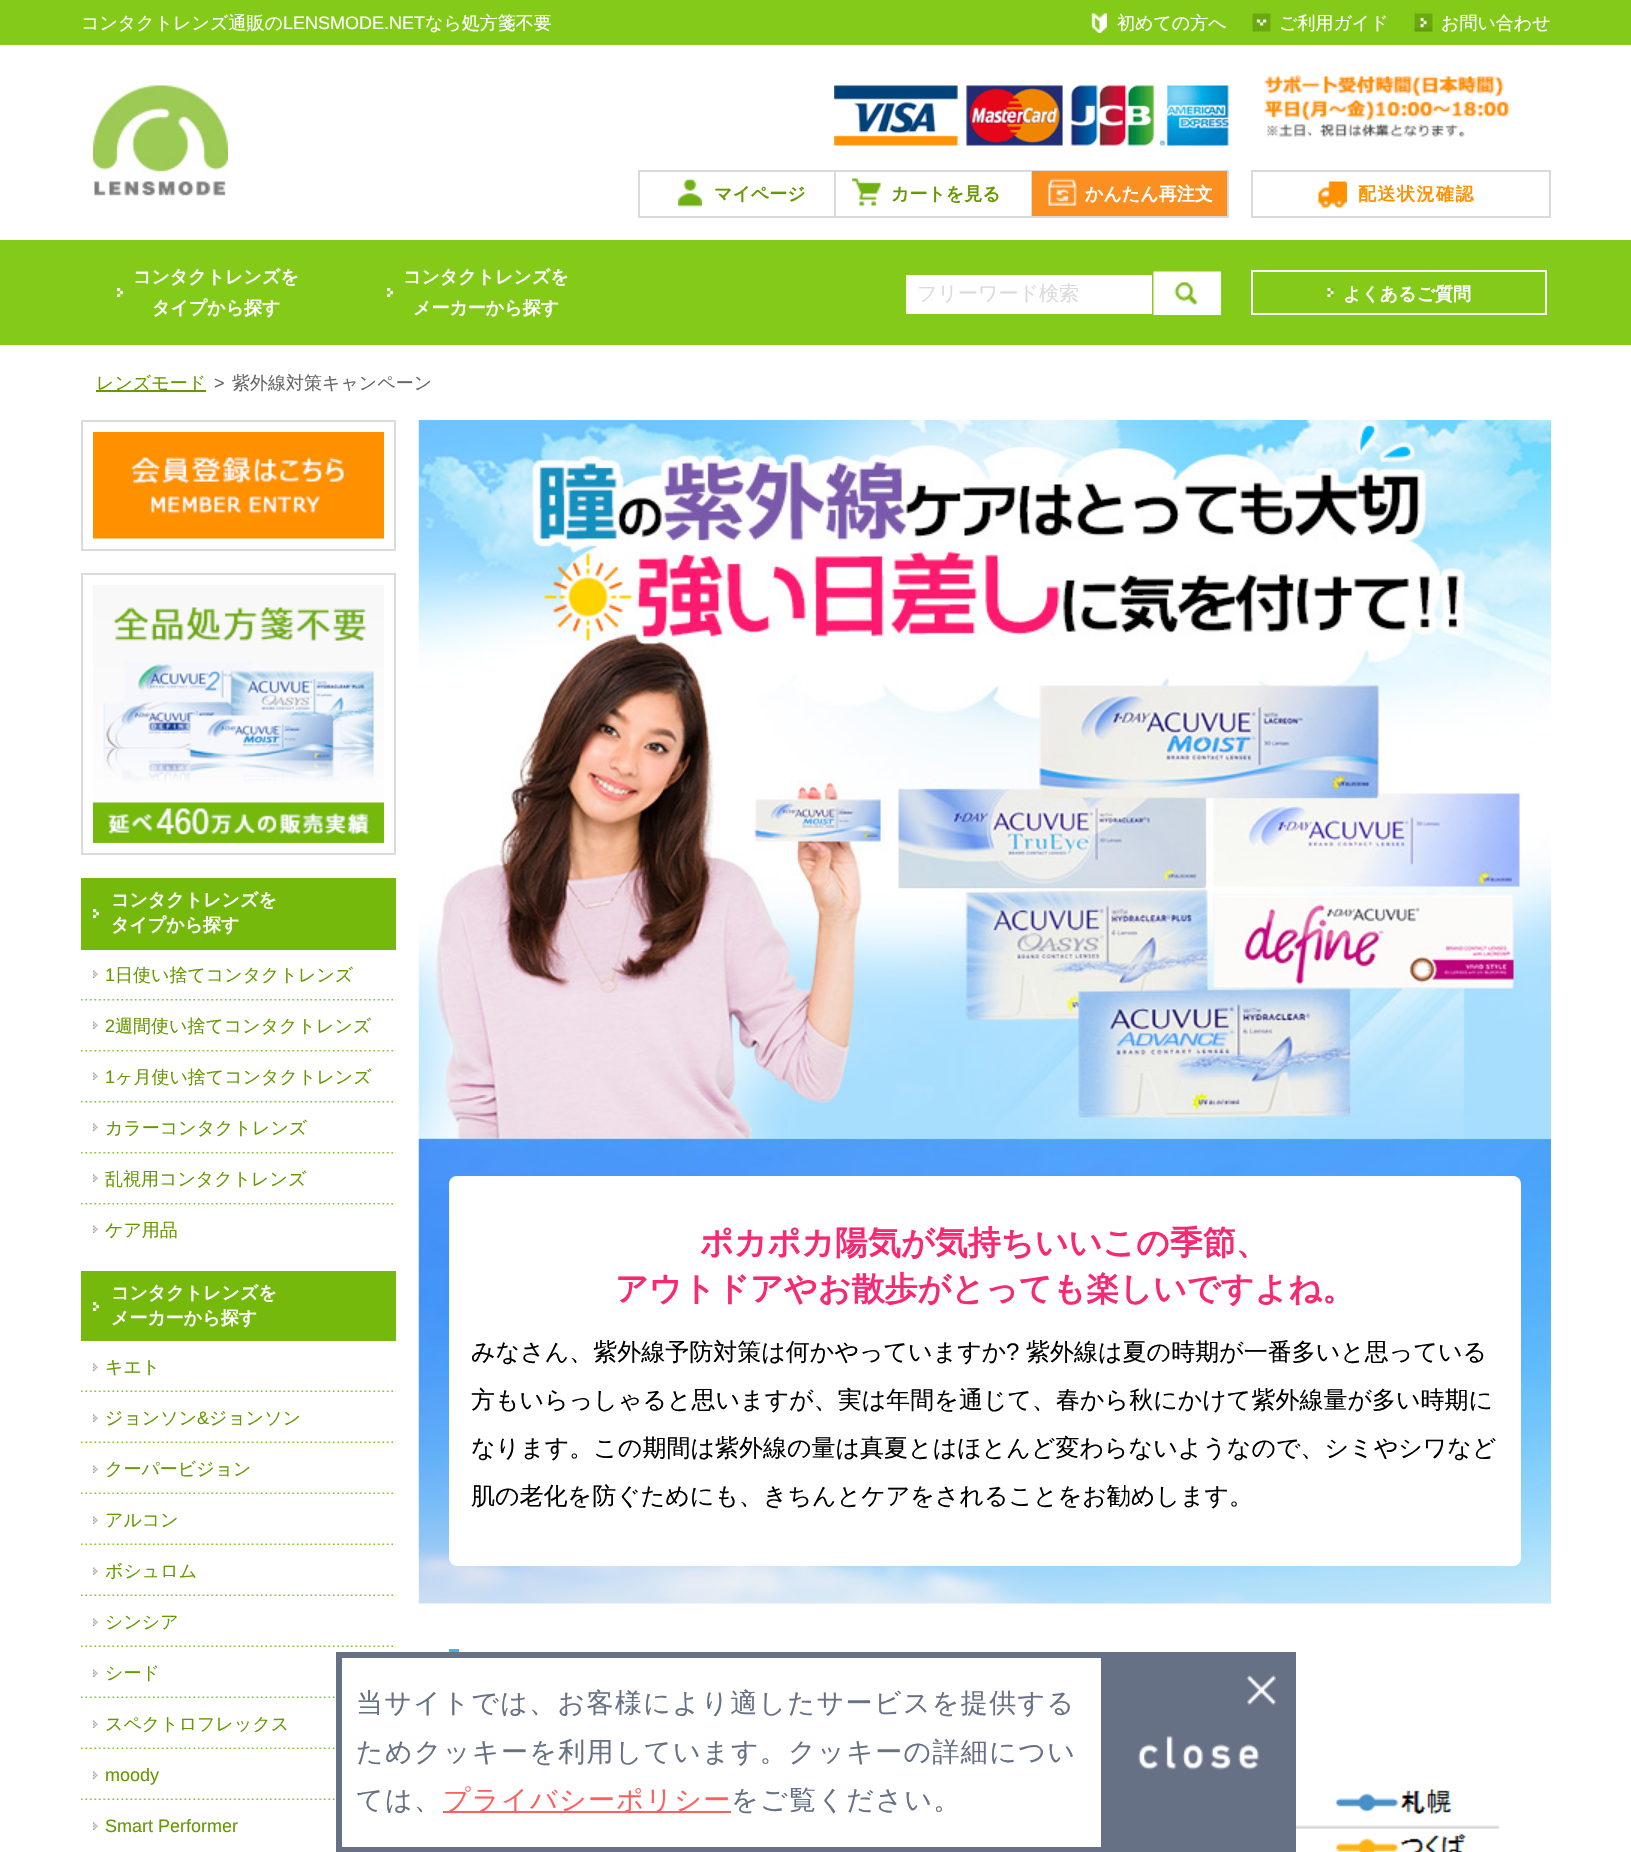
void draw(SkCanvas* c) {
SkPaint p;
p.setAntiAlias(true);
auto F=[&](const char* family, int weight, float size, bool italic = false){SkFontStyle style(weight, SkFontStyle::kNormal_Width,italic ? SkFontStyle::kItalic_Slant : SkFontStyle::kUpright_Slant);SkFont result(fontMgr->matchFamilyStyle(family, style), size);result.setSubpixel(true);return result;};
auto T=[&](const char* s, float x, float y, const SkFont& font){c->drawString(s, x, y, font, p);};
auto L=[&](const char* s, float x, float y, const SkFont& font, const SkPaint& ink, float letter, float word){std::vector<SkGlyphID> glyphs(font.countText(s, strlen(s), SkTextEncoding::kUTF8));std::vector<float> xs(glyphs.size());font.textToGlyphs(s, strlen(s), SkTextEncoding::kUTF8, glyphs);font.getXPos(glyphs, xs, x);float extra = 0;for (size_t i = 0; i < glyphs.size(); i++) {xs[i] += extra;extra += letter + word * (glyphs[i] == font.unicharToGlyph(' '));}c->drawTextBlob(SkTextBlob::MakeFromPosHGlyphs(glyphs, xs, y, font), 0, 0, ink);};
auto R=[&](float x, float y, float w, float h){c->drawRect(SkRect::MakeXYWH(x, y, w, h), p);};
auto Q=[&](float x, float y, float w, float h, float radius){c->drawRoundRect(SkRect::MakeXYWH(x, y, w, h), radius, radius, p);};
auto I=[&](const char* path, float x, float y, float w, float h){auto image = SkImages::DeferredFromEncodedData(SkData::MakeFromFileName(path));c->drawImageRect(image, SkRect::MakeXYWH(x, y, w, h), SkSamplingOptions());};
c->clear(0xffffffff);
p.setColor(0xff84ca19);
R(0,0,1631,45);
auto f1 = F("WenQuanYi Zen Hei",500,18);
p.setColor(0xffffffff);
T("コンタクトレンズ通販の",81,29,f1);
auto f2 = F("Liberation Sans",400,18);
T("LENSMODE.NET",283,29,f2);
T("なら処方箋不要",425,29,f1);
I("1.png",1091,13,16,20);
T("初めての方へ",1117,29,f1);
I("2.png",1252,13,19,19);
T("ご利用ガイド",1279,29,f1);
I("3.png",1414,13,19,19);
T("お問い合わせ",1441,29,f1);
I("4.png",93,85,135,111);
I("5.png",834,85,395,61);
I("6.png",1264,74,246,63);
p.setColor(0xffdadbd9);
R(638,170,393,2);
R(638,216,393,2);
R(638,170,2,48);
I("7.png",678,178,24,29);
auto f3 = F("WenQuanYi Zen Hei",700,18);
p.setColor(0xff669900);
T("マイページ",714,200,f3);
p.setColor(0xffdadbd9);
R(834,170,2,48);
I("8.png",852,178,30,29);
p.setColor(0xff669900);
T("カートを見る",891,200,f3);
p.setStroke(true);
p.setStrokeWidth(2);
p.setColor(0xffdadbd9);
c->drawRect(SkRect::MakeXYWH(1032,171,196,46),p);
p.setStroke(false);
p.setColor(0xfffb8f22);
R(1032,171,195,45);
I("9.png",1048,178,29,28);
p.setColor(0xffffffff);
T("かんたん再注文",1085,200,f3);
p.setStroke(true);
p.setColor(0xffdadbd9);
c->drawRect(SkRect::MakeXYWH(1252,171,298,46),p);
I("10.png",1318,181,29,28);
p.setStroke(false);
p.setColor(0xffff9000);
L("配送状況確認",1358,200,f3,p,1.5,0);
p.setColor(0xff84ca19);
R(0,240,1631,105);
I("11.png",117,288,6,9);
p.setColor(0xffffffff);
T("コンタクトレンズを",133,283,f3);
T("タイプから探す",152,314,f3);
I("11.png",387,288,6,9);
T("コンタクトレンズを",403,283,f3);
T("メーカーから探す",413,314,f3);
R(906,275,246,39);
auto f4 = F("WenQuanYi Zen Hei",500,20);
p.setColor(0xffdbdbdb);
T("フリーワード検索",917,300,f4);
I("12.png",1153,271,70,44);
I("13.png",1327,288,7,9);
p.setStroke(true);
p.setColor(0xffffffff);
c->drawRect(SkRect::MakeXYWH(1252,271,294,43),p);
p.setStroke(false);
T("よくあるご質問",1343,300,f3);
p.setColor(0xff669900);
R(96,390,110,2);
T("レンズモード",96,389,f1);
p.setColor(0xff666666);
T(">",214,389,f2);
T("紫外線対策キャンペーン",232,389,f1);
p.setStroke(true);
p.setColor(0xffdbdbdb);
c->drawRect(SkRect::MakeXYWH(82,421,313,129),p);
I("14.png",93,432,291,107);
c->drawRect(SkRect::MakeXYWH(82,574,313,280),p);
I("15.png",93,585,291,258);
p.setStroke(false);
p.setColor(0xff74b90c);
R(81,878,315,72);
I("16.png",93,909,6,9);
p.setColor(0xffffffff);
T("コンタクトレンズを",111,906,f3);
T("タイプから探す",111,931,f3);
I("17.png",81,999,315,2);
I("18.png",93,970,5,8);
p.setColor(0xff669900);
T("1",105,981,f2);
T("日使い捨てコンタクトレンズ",115,981,f1);
I("17.png",81,1050,315,2);
I("18.png",93,1021,5,8);
T("2",105,1032,f2);
T("週間使い捨てコンタクトレンズ",115,1032,f1);
I("17.png",81,1101,315,2);
I("18.png",93,1072,5,8);
T("1",105,1083,f2);
T("ヶ月使い捨てコンタクトレンズ",115,1083,f1);
I("17.png",81,1152,315,2);
I("18.png",93,1123,5,8);
T("カラーコンタクトレンズ",105,1134,f1);
I("17.png",81,1203,315,2);
I("18.png",93,1174,5,8);
T("乱視用コンタクトレンズ",105,1185,f1);
I("18.png",93,1225,5,8);
T("ケア用品",105,1236,f1);
p.setColor(0xff74b90c);
R(81,1271,315,70);
I("16.png",93,1302,6,9);
p.setColor(0xffffffff);
T("コンタクトレンズを",111,1299,f3);
T("メーカーから探す",111,1324,f3);
I("19.png",81,1390,315,2);
I("18.png",93,1363,5,8);
p.setColor(0xff669900);
T("キエト",105,1373,f1);
I("20.png",81,1441,315,2);
I("18.png",93,1414,5,8);
T("ジョンソン",105,1424,f1);
T("&",197,1424,f2);
T("ジョンソン",209,1424,f1);
I("19.png",81,1492,315,2);
I("18.png",93,1465,5,8);
T("クーパービジョン",105,1475,f1);
I("19.png",81,1543,315,2);
I("18.png",93,1516,5,8);
T("アルコン",105,1526,f1);
I("19.png",81,1594,315,2);
I("18.png",93,1567,5,8);
T("ボシュロム",105,1577,f1);
I("19.png",81,1645,315,2);
I("18.png",93,1618,5,8);
T("シンシア",105,1628,f1);
I("21.png",81,1696,255,2);
I("18.png",93,1669,5,8);
T("シード",105,1679,f1);
I("21.png",81,1747,255,2);
I("18.png",93,1720,5,8);
T("スペクトロフレックス",105,1730,f1);
I("21.png",81,1798,255,2);
I("18.png",93,1771,5,8);
T("moody",105,1781,f2);
I("18.png",93,1822,5,8);
T("Smart Performer",105,1832,f2);
I("23.png",418,1138,1133,466);
I("22.png",418,420,1133,719);
p.setColor(0xffffffff);
Q(449,1176,1072,390,8);
auto f5 = F("WenQuanYi Zen Hei",700,33);
p.setColor(0xfffa2772);
T("ポカポカ陽気が気持ちいいこの季節、",700,1254,f5);
T("アウトドアやお散歩がとっても楽しいですよね。",615,1300,f5);
auto f6 = F("WenQuanYi Zen Hei",500,24);
p.setColor(0xff000000);
T("みなさん、紫外線予防対策は何かやっていますか",471,1360,f6);
auto f7 = F("Liberation Sans",400,24);
T("?",1006,1360,f7);
T("紫外線は夏の時期が一番多いと思っている",1026,1360,f6);
T("方もいらっしゃると思いますが、実は年間を通じて、春から秋にかけて紫外線量が多い時期に",471,1408,f6);
T("なります。この期間は紫外線の量は真夏とはほとんど変わらないようなので、シミやシワなど",471,1456,f6);
T("肌の老化を防ぐためにも、きちんとケアをされることをお勧めします。",471,1504,f6);
p.setColor(0xff41b4e8);
R(449,1649,10,3);
I("24.png",1296,1750,204,102);
p.setStroke(true);
p.setStrokeWidth(6);
p.setColor(0xff677185);
c->drawRect(SkRect::MakeXYWH(339,1655,954,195),p);
auto f8 = F("WenQuanYi Zen Hei",500,27);
p.setStroke(false);
L("当サイトでは、お客様により適したサービスを提供する",356,1712,f8,p,1.35,0);
L("ためクッキーを利用しています。クッキーの詳細につい",356,1761,f8,p,1.35,0);
L("ては、",356,1809,f8,p,1.35,0);
p.setColor(0xffff5f5f);
R(443,1811,288,2);
L("プライバシーポリシー",443,1809,f8,p,1.35,0);
p.setColor(0xff677185);
L("をご覧ください。",731,1809,f8,p,1.35,0);
R(1101,1658,189,189);
I("25.png",1138,1675,138,95);
}
